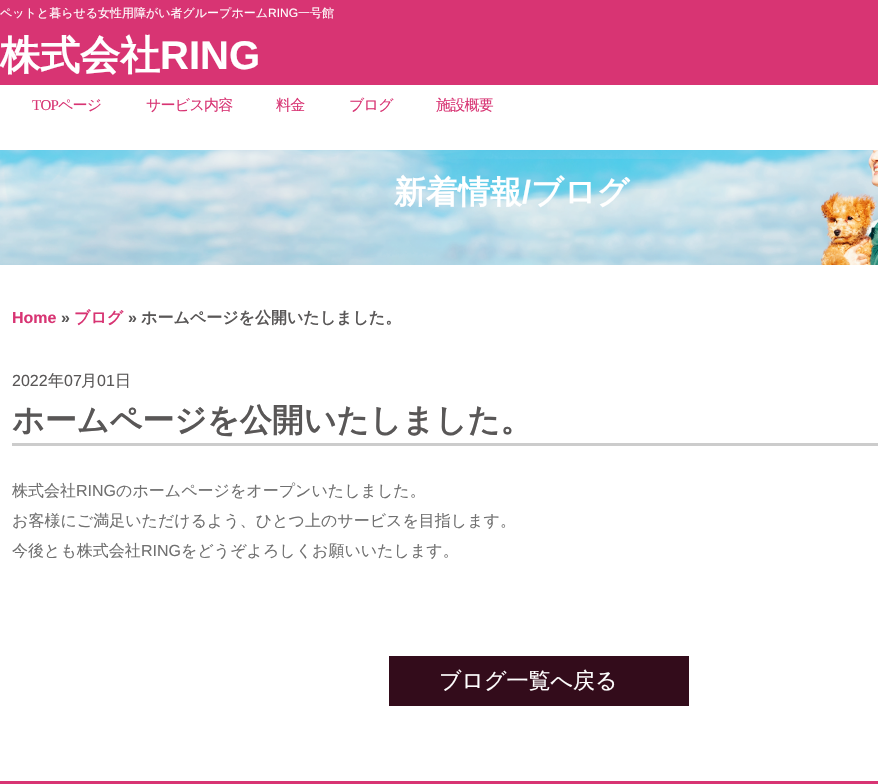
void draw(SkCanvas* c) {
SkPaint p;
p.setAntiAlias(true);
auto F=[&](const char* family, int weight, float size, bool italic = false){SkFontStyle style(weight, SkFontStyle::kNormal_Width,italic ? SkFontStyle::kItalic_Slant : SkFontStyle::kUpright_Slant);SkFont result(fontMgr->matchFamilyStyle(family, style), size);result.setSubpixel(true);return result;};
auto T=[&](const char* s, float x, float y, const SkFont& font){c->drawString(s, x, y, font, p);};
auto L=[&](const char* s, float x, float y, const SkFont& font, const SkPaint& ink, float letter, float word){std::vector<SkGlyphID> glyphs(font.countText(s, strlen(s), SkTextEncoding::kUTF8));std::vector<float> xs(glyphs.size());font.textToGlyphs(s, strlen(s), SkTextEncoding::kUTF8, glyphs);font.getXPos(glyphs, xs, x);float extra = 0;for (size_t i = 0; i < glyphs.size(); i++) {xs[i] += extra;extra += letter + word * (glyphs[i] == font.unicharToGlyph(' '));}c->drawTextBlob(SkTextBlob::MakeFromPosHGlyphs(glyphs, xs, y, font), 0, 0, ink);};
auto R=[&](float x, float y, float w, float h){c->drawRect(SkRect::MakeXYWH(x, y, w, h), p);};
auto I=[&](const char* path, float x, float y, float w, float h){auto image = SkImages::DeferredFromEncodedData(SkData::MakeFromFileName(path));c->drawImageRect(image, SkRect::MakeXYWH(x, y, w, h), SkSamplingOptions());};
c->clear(0xffffffff);
p.setColor(0xffd83473);
R(0,0,878,85);
auto f1 = F("WenQuanYi Zen Hei",500,12);
p.setColor(0xffffffff);
T("ペットと暮らせる女性用障がい者グループホーム",0,17,f1);
auto f2 = F("Liberation Sans",400,12);
T("RING",268,17,f2);
T("一号館",298,17,f1);
auto f3 = F("WenQuanYi Zen Hei",700,40);
T("株式会社",0,69,f3);
auto f4 = F("Liberation Sans",700,40);
T("RING",160,69,f4);
auto f5 = F("Liberation Serif",400,15);
p.setColor(0xffd83473);
L("TOP",32,110,f5,p,-.75,0);
auto f6 = F("WenQuanYi Zen Hei",500,15);
L("ページ",58,110,f6,p,-.75,0);
L("サービス内容",146,110,f6,p,-.75,0);
L("料金",276,110,f6,p,-.75,0);
L("ブログ",349,110,f6,p,-.75,0);
L("施設概要",436,110,f6,p,-.75,0);
I("1.png",0,150,878,115);
auto f7 = F("WenQuanYi Zen Hei",700,32);
p.setColor(0xffffffff);
T("新着情報",394,203,f7);
auto f8 = F("Liberation Sans",700,32);
T("/",522,203,f8);
T("ブログ",531,203,f7);
auto f9 = F("Liberation Sans",700,16);
p.setColor(0xffd83473);
T("Home",12,323,f9);
p.setColor(0xff595757);
T("»",61,323,f9);
auto f10 = F("WenQuanYi Zen Hei",700,16);
p.setColor(0xffd83473);
T("ブログ",74,323,f10);
p.setColor(0xff595757);
T("»",128,323,f9);
T("ホームページを公開いたしました。",141,323,f10);
auto f11 = F("Liberation Sans",400,16);
T("2022",12,386,f11);
auto f12 = F("WenQuanYi Zen Hei",500,16);
T("年",48,386,f12);
T("07",64,386,f11);
T("月",81,386,f12);
T("01",97,386,f11);
T("日",115,386,f12);
p.setColor(0xffcccccc);
R(12,443,866,3);
p.setColor(0xff595757);
T("ホームページを公開いたしました。",12,431,f7);
p.setColor(0xff707070);
T("株式会社",12,496,f12);
T("RING",76,496,f11);
T("のホームページをオープンいたしました。",116,496,f12);
T("お客様にご満足いただけるよう、ひとつ上のサービスを目指します。",12,526,f12);
T("今後とも株式会社",12,556,f12);
T("RING",141,556,f11);
T("をどうぞよろしくお願いいたします。",181,556,f12);
p.setColor(0xff330c1b);
R(389,656,300,50);
auto f13 = F("WenQuanYi Zen Hei",500,22);
p.setColor(0xffffffff);
T("ブログ一覧へ戻る",439,688,f13);
p.setColor(0xffd83473);
R(0,781,878,3);
}
